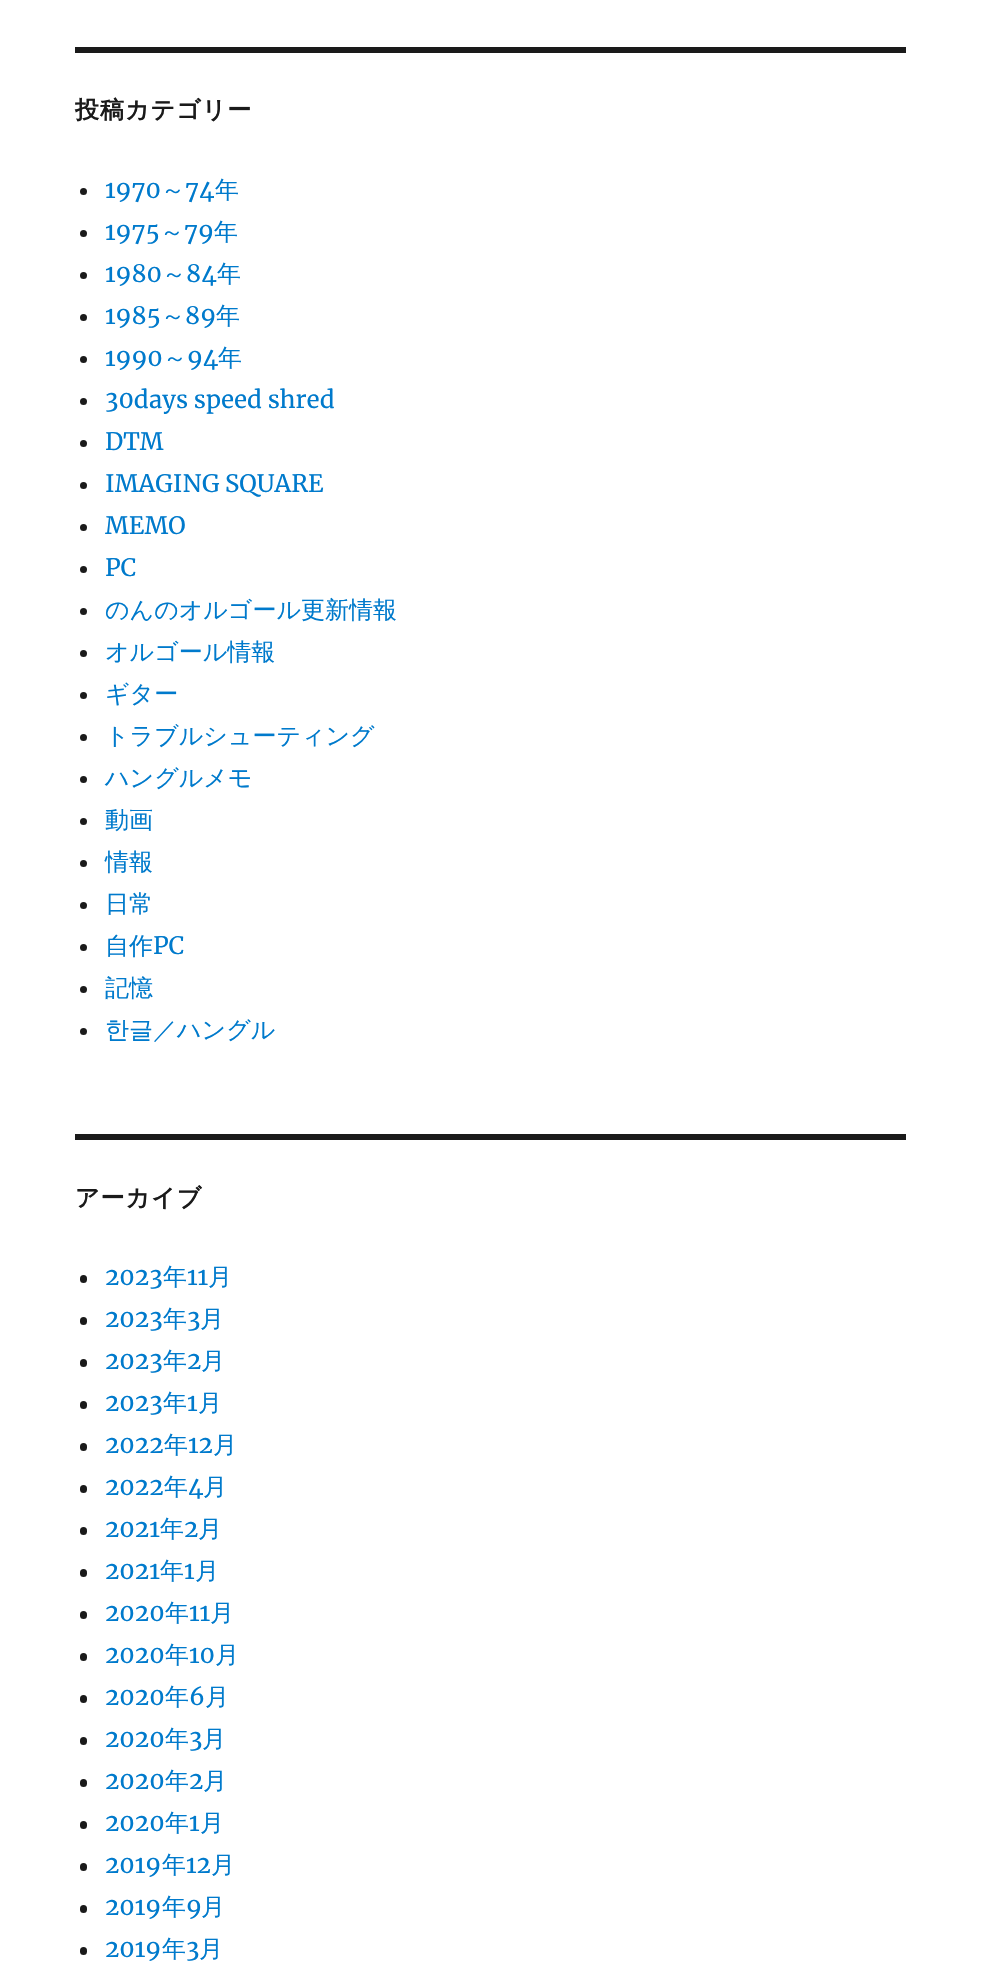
void draw(SkCanvas* c) {
SkPaint p;
p.setAntiAlias(true);
auto F=[&](const char* family, int weight, float size, bool italic = false){SkFontStyle style(weight, SkFontStyle::kNormal_Width,italic ? SkFontStyle::kItalic_Slant : SkFontStyle::kUpright_Slant);SkFont result(fontMgr->matchFamilyStyle(family, style), size);result.setSubpixel(true);return result;};
auto T=[&](const char* s, float x, float y, const SkFont& font){c->drawString(s, x, y, font, p);};
auto L=[&](const char* s, float x, float y, const SkFont& font, const SkPaint& ink, float letter, float word){std::vector<SkGlyphID> glyphs(font.countText(s, strlen(s), SkTextEncoding::kUTF8));std::vector<float> xs(glyphs.size());font.textToGlyphs(s, strlen(s), SkTextEncoding::kUTF8, glyphs);font.getXPos(glyphs, xs, x);float extra = 0;for (size_t i = 0; i < glyphs.size(); i++) {xs[i] += extra;extra += letter + word * (glyphs[i] == font.unicharToGlyph(' '));}c->drawTextBlob(SkTextBlob::MakeFromPosHGlyphs(glyphs, xs, y, font), 0, 0, ink);};
auto R=[&](float x, float y, float w, float h){c->drawRect(SkRect::MakeXYWH(x, y, w, h), p);};
auto Q=[&](float x, float y, float w, float h, float radius){c->drawRoundRect(SkRect::MakeXYWH(x, y, w, h), radius, radius, p);};
c->clear(0xffffffff);
p.setColor(0xff1a1a1a);
R(75,47,831,6);
auto f1 = F("WenQuanYi Zen Hei",700,24);
L("投稿カテゴリー",75,118,f1,p,1,0);
c->drawCircle(83.5,191.5,3.5,p);
auto f2 = F("Merriweather",400,24);
p.setColor(0xff007acc);
T("1970",105,198,f2);
auto f3 = F("WenQuanYi Zen Hei",500,24);
T("～",161,198,f3);
T("74",185,198,f2);
T("年",215,198,f3);
p.setColor(0xff1a1a1a);
c->drawCircle(83.5,233.5,3.5,p);
p.setColor(0xff007acc);
T("1975",105,240,f2);
T("～",160,240,f3);
T("79",184,240,f2);
T("年",214,240,f3);
p.setColor(0xff1a1a1a);
c->drawCircle(83.5,275.5,3.5,p);
p.setColor(0xff007acc);
T("1980",105,282,f2);
T("～",162,282,f3);
T("84",186,282,f2);
T("年",217,282,f3);
p.setColor(0xff1a1a1a);
c->drawCircle(83.5,317.5,3.5,p);
p.setColor(0xff007acc);
T("1985",105,324,f2);
T("～",161,324,f3);
T("89",185,324,f2);
T("年",216,324,f3);
p.setColor(0xff1a1a1a);
c->drawCircle(83.5,359.5,3.5,p);
p.setColor(0xff007acc);
T("1990",105,366,f2);
T("～",163,366,f3);
T("94",187,366,f2);
T("年",218,366,f3);
p.setColor(0xff1a1a1a);
c->drawCircle(83.5,401.5,3.5,p);
p.setColor(0xff007acc);
T("30days speed shred",105,408,f2);
p.setColor(0xff1a1a1a);
c->drawCircle(83.5,443.5,3.5,p);
p.setColor(0xff007acc);
T("DTM",105,450,f2);
p.setColor(0xff1a1a1a);
c->drawCircle(83.5,485.5,3.5,p);
p.setColor(0xff007acc);
T("IMAGING SQUARE",105,492,f2);
p.setColor(0xff1a1a1a);
c->drawCircle(83.5,527.5,3.5,p);
p.setColor(0xff007acc);
T("MEMO",105,534,f2);
p.setColor(0xff1a1a1a);
c->drawCircle(83.5,569.5,3.5,p);
p.setColor(0xff007acc);
T("PC",105,576,f2);
p.setColor(0xff1a1a1a);
c->drawCircle(83.5,611.5,3.5,p);
p.setColor(0xff007acc);
T("のんのオルゴール更新情報",105,618,f3);
p.setColor(0xff1a1a1a);
c->drawCircle(83.5,653.5,3.5,p);
p.setColor(0xff007acc);
T("オルゴール情報",105,660,f3);
p.setColor(0xff1a1a1a);
c->drawCircle(83.5,695.5,3.5,p);
p.setColor(0xff007acc);
T("ギター",105,702,f3);
p.setColor(0xff1a1a1a);
c->drawCircle(83.5,737.5,3.5,p);
p.setColor(0xff007acc);
T("トラブルシューティング",105,744,f3);
p.setColor(0xff1a1a1a);
c->drawCircle(83.5,779.5,3.5,p);
p.setColor(0xff007acc);
T("ハングルメモ",105,786,f3);
p.setColor(0xff1a1a1a);
c->drawCircle(83.5,821.5,3.5,p);
p.setColor(0xff007acc);
T("動画",105,828,f3);
p.setColor(0xff1a1a1a);
c->drawCircle(83.5,863.5,3.5,p);
p.setColor(0xff007acc);
T("情報",105,870,f3);
p.setColor(0xff1a1a1a);
c->drawCircle(83.5,905.5,3.5,p);
p.setColor(0xff007acc);
T("日常",105,912,f3);
p.setColor(0xff1a1a1a);
c->drawCircle(83.5,947.5,3.5,p);
p.setColor(0xff007acc);
T("自作",105,954,f3);
T("PC",153,954,f2);
p.setColor(0xff1a1a1a);
c->drawCircle(83.5,989.5,3.5,p);
p.setColor(0xff007acc);
T("記憶",105,996,f3);
p.setColor(0xff1a1a1a);
c->drawCircle(83.5,1031.5,3.5,p);
p.setColor(0xff007acc);
T("한글／ハングル",105,1038,f3);
p.setColor(0xff1a1a1a);
R(75,1134,831,6);
L("アーカイブ",75,1206,f1,p,1,0);
Q(80,1275,7,8,3.5);
p.setColor(0xff007acc);
T("2023",105,1285,f2);
T("年",163,1285,f3);
T("11",187,1285,f2);
T("月",208,1285,f3);
p.setColor(0xff1a1a1a);
Q(80,1317,7,8,3.5);
p.setColor(0xff007acc);
T("2023",105,1327,f2);
T("年",163,1327,f3);
T("3",187,1327,f2);
T("月",200,1327,f3);
p.setColor(0xff1a1a1a);
Q(80,1359,7,8,3.5);
p.setColor(0xff007acc);
T("2023",105,1369,f2);
T("年",163,1369,f3);
T("2",187,1369,f2);
T("月",201,1369,f3);
p.setColor(0xff1a1a1a);
Q(80,1401,7,8,3.5);
p.setColor(0xff007acc);
T("2023",105,1411,f2);
T("年",163,1411,f3);
T("1",187,1411,f2);
T("月",198,1411,f3);
p.setColor(0xff1a1a1a);
Q(80,1443,7,8,3.5);
p.setColor(0xff007acc);
T("2022",105,1453,f2);
T("年",164,1453,f3);
T("12",188,1453,f2);
T("月",213,1453,f3);
p.setColor(0xff1a1a1a);
Q(80,1485,7,8,3.5);
p.setColor(0xff007acc);
T("2022",105,1495,f2);
T("年",164,1495,f3);
T("4",188,1495,f2);
T("月",203,1495,f3);
p.setColor(0xff1a1a1a);
Q(80,1527,7,8,3.5);
p.setColor(0xff007acc);
T("2021",105,1537,f2);
T("年",160,1537,f3);
T("2",184,1537,f2);
T("月",198,1537,f3);
p.setColor(0xff1a1a1a);
Q(80,1569,7,8,3.5);
p.setColor(0xff007acc);
T("2021",105,1579,f2);
T("年",160,1579,f3);
T("1",184,1579,f2);
T("月",195,1579,f3);
p.setColor(0xff1a1a1a);
Q(80,1611,7,8,3.5);
p.setColor(0xff007acc);
T("2020",105,1621,f2);
T("年",165,1621,f3);
T("11",189,1621,f2);
T("月",210,1621,f3);
p.setColor(0xff1a1a1a);
Q(80,1653,7,8,3.5);
p.setColor(0xff007acc);
T("2020",105,1663,f2);
T("年",165,1663,f3);
T("10",189,1663,f2);
T("月",215,1663,f3);
p.setColor(0xff1a1a1a);
Q(80,1695,7,8,3.5);
p.setColor(0xff007acc);
T("2020",105,1705,f2);
T("年",165,1705,f3);
T("6",189,1705,f2);
T("月",205,1705,f3);
p.setColor(0xff1a1a1a);
Q(80,1737,7,8,3.5);
p.setColor(0xff007acc);
T("2020",105,1747,f2);
T("年",165,1747,f3);
T("3",189,1747,f2);
T("月",202,1747,f3);
p.setColor(0xff1a1a1a);
Q(80,1779,7,8,3.5);
p.setColor(0xff007acc);
T("2020",105,1789,f2);
T("年",165,1789,f3);
T("2",189,1789,f2);
T("月",203,1789,f3);
p.setColor(0xff1a1a1a);
Q(80,1821,7,8,3.5);
p.setColor(0xff007acc);
T("2020",105,1831,f2);
T("年",165,1831,f3);
T("1",189,1831,f2);
T("月",200,1831,f3);
p.setColor(0xff1a1a1a);
Q(80,1863,7,8,3.5);
p.setColor(0xff007acc);
T("2019",105,1873,f2);
T("年",162,1873,f3);
T("12",186,1873,f2);
T("月",211,1873,f3);
p.setColor(0xff1a1a1a);
Q(80,1905,7,8,3.5);
p.setColor(0xff007acc);
T("2019",105,1915,f2);
T("年",162,1915,f3);
T("9",186,1915,f2);
T("月",201,1915,f3);
p.setColor(0xff1a1a1a);
Q(80,1947,7,8,3.5);
p.setColor(0xff007acc);
T("2019",105,1957,f2);
T("年",162,1957,f3);
T("3",186,1957,f2);
T("月",199,1957,f3);
}
